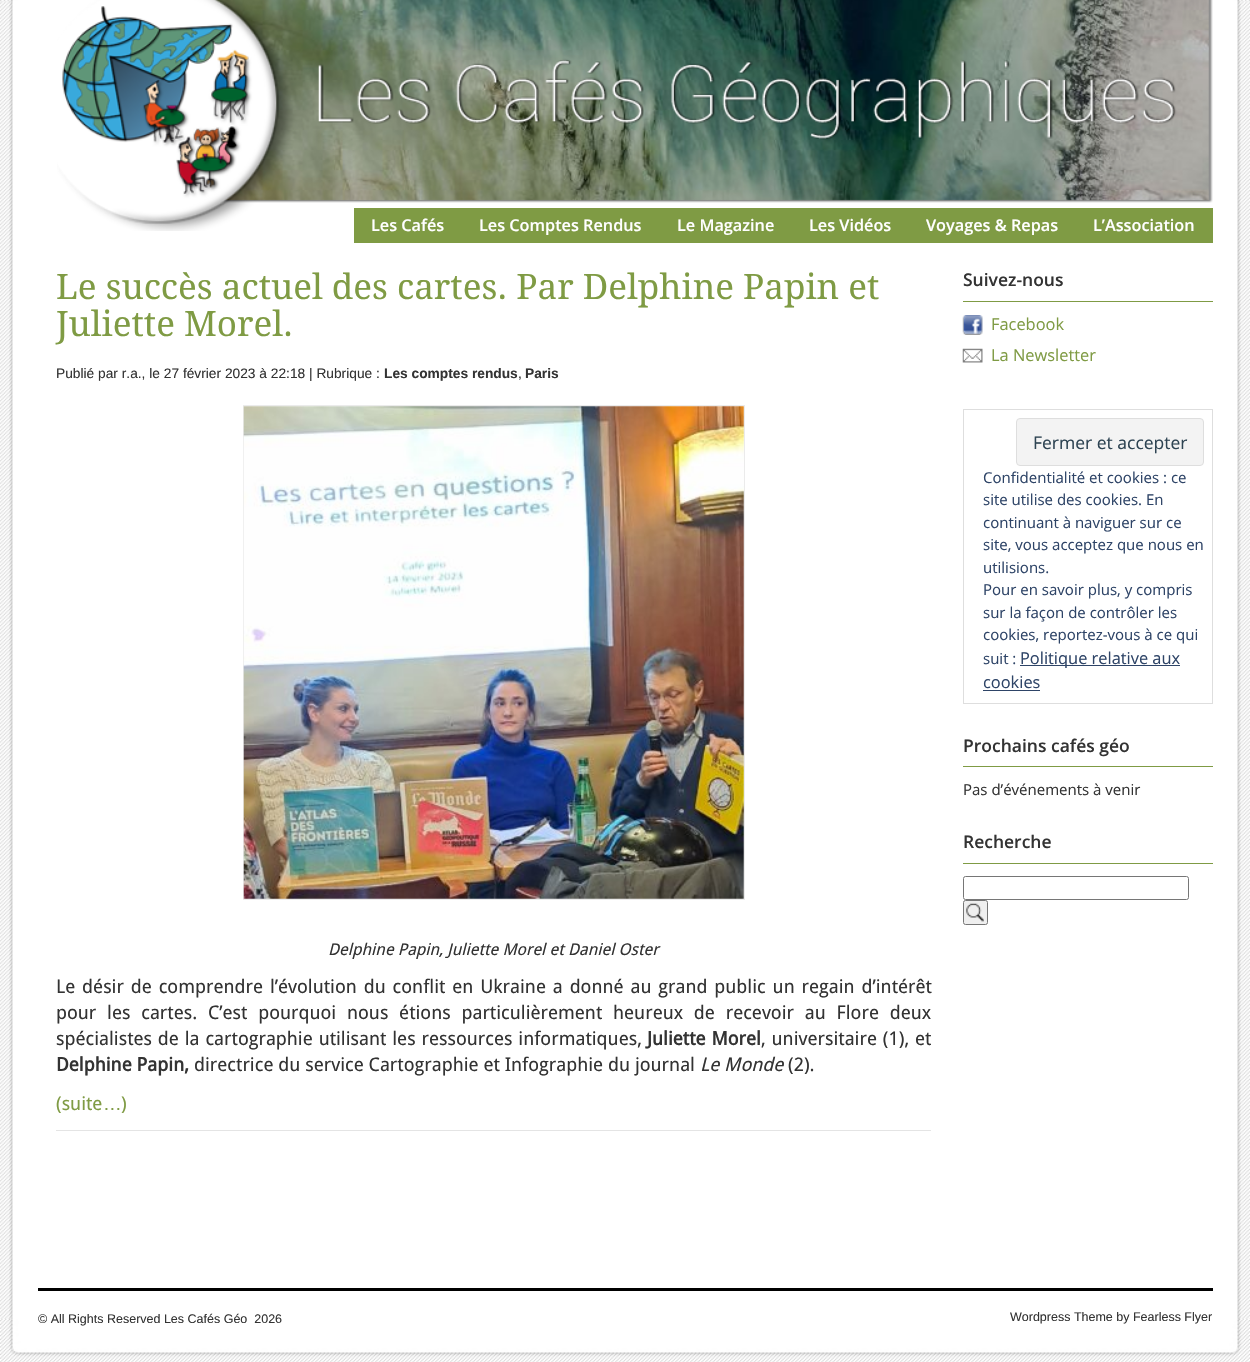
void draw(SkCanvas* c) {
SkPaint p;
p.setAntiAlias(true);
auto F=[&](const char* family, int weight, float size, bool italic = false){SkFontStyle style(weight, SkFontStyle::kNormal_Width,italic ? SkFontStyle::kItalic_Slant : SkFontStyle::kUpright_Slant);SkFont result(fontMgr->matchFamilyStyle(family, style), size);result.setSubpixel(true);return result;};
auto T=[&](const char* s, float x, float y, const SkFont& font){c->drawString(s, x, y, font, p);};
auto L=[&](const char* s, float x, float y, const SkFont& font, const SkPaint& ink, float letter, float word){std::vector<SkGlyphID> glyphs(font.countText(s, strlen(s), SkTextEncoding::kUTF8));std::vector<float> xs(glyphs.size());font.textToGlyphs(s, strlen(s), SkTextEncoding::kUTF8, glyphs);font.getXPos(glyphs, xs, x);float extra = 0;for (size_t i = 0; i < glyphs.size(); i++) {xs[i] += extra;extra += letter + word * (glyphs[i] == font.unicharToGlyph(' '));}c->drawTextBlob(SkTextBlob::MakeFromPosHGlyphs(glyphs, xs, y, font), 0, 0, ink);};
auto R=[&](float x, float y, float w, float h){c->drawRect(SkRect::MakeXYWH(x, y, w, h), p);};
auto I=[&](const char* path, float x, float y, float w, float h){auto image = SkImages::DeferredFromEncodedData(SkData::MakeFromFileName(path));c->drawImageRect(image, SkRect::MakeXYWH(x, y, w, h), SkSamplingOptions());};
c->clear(0xffffffff);
I("1.png",0,1,1250,1318);
I("2.png",9,1,1232,1318);
I("3.png",0,0,1250,2);
I("4.png",57,0,1156,231);
p.setColor(0xff7f9b44);
R(354,208,859,35);
auto f1 = F("Open Sans",600,16.25);
p.setColor(0xffffffff);
T("Les Cafés",371,231,f1);
T("Les Comptes Rendus",479,231,f1);
T("Le Magazine",677,231,f1);
T("Les Vidéos",809,231,f1);
T("Voyages & Repas",926,231,f1);
T("L’Association",1093,231,f1);
p.setColor(0xffe4e4e4);
R(56,1130,875,1);
auto f2 = F("Droid Serif",400,35);
p.setColor(0xff7f9b44);
T("Le succès actuel des cartes. Par Delphine Papin et",56,299,f2);
T("Juliette Morel.",56,336,f2);
auto f3 = F("Liberation Sans",400,13.75);
p.setColor(0xff333333);
T("Publié par r.a., le 27 février 2023 à 22:18 | Rubrique :",56,378,f3);
auto f4 = F("Liberation Sans",700,13.75);
T("Les comptes rendus",384,378,f4);
T(",",518,378,f3);
T("Paris",525,378,f4);
p.setStroke(true);
p.setStrokeWidth(1);
p.setColor(0xffebebeb);
c->drawRect(SkRect::MakeXYWH(243.5,405.5,501,494),p);
I("5.png",243,406,501,493);
auto f5 = F("Droid Sans",400,16.25,true);
p.setStroke(false);
p.setColor(0xff333333);
T("Delphine Papin, Juliette Morel et Daniel Oster",328,955,f5);
auto f6 = F("Droid Sans",400,18.75);
L("Le désir de comprendre l’évolution du conflit en Ukraine a donné au grand public un regain d’intérêt",56,993,f6,p,0,2);
L("pour les cartes. C’est pourquoi nous étions particulièrement heureux de recevoir au Flore deux",56,1019,f6,p,0,5.9);
L("spécialistes de la cartographie utilisant les ressources informatiques,",56,1045,f6,p,0,1);
auto f7 = F("Droid Sans",700,18.75);
L("Juliette Morel",647,1045,f7,p,0,1);
L(", universitaire (1), et",761,1045,f6,p,0,1);
T("Delphine Papin,",56,1071,f7);
T("directrice du service Cartographie et Infographie du journal",194,1071,f6);
auto f8 = F("Droid Sans",400,18.75,true);
T("Le Monde",700,1071,f8);
T("(2).",788,1071,f6);
p.setColor(0xff7f9b44);
T("(suite",56,1110,f6);
auto f9 = F("Liberation Sans",400,18.75);
T("…",103,1110,f9);
T(")",121,1110,f6);
R(963,301,250,1);
auto f10 = F("Open Sans",600,17.5);
p.setColor(0xff333333);
T("Suivez-nous",963,286,f10);
I("6.png",962,315,21,20);
auto f11 = F("Open Sans",400,16.4);
p.setColor(0xff7f9b44);
T("Facebook",991,330,f11);
I("7.png",962,348,21,15);
T("La Newsletter",991,361,f11);
p.setStroke(true);
p.setColor(0xffdedede);
c->drawRect(SkRect::MakeXYWH(963.5,409.5,249,294),p);
p.setStroke(false);
p.setColor(0xfff3f3f3);
c->drawRoundRect(SkRect::MakeXYWH(1016.5,418.5,187,47),3.5,3.5,p);
p.setStroke(true);
p.setColor(0xffdedede);
c->drawRoundRect(SkRect::MakeXYWH(1016.5,418.5,187,47),3.5,3.5,p);
auto f12 = F("Open Sans",400,17.5);
p.setStroke(false);
p.setColor(0xff2e4453);
T("Fermer et accepter",1033,449,f12);
auto f13 = F("Open Sans",400,15);
p.setColor(0xff2e4467);
T("Confidentialité et cookies : ce",983,483,f13);
T("site utilise des cookies. En",983,505,f13);
T("continuant à naviguer sur ce",983,528,f13);
T("site, vous acceptez que nous en",983,550,f13);
T("utilisions.",983,573,f13);
T("Pour en savoir plus, y compris",983,595,f13);
T("sur la façon de contrôler les",983,618,f13);
T("cookies, reportez-vous à ce qui",983,640,f13);
T("suit :",983,664,f13);
R(1020,665,160,1);
T("Politique relative aux",1020,664,f11);
T("cookies",983,688,f11);
R(983,690,57,1);
p.setColor(0xff7f9b44);
R(963,766,250,1);
p.setColor(0xff333333);
T("Prochains cafés géo",963,752,f10);
T("Pas d’événements à venir",963,795,f13);
p.setColor(0xff7f9b44);
R(963,863,250,1);
p.setColor(0xff333333);
T("Recherche",963,848,f10);
p.setStroke(true);
p.setColor(0xff767676);
c->drawRoundRect(SkRect::MakeXYWH(963.5,876.5,225,23),2,2,p);
p.setStroke(false);
p.setColor(0xffefefef);
c->drawRoundRect(SkRect::MakeXYWH(963.5,900.5,24,24),2,2,p);
p.setStroke(true);
p.setColor(0xff767676);
c->drawRoundRect(SkRect::MakeXYWH(963.5,900.5,24,24),2,2,p);
I("8.png",966,903,18,19);
I("9.png",0,1319,1250,43);
p.setStroke(false);
p.setColor(0xff000000);
R(38,1288,1175,3);
auto f14 = F("Liberation Sans",400,12.5);
p.setColor(0xff333333);
T("© All Rights Reserved Les Cafés Géo  2026",38,1323,f14);
T("Wordpress Theme by Fearless Flyer",1010,1321,f14);
}
